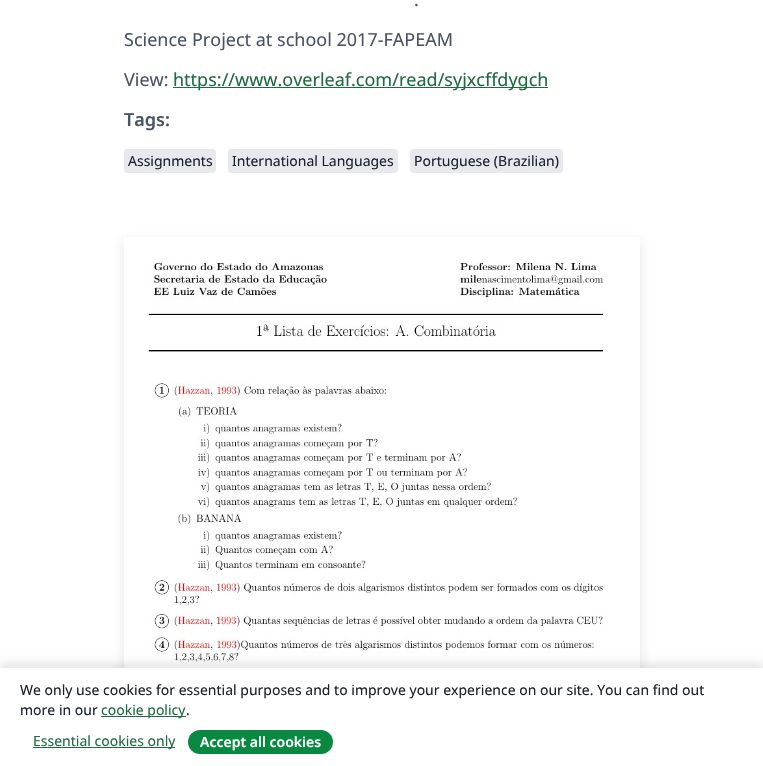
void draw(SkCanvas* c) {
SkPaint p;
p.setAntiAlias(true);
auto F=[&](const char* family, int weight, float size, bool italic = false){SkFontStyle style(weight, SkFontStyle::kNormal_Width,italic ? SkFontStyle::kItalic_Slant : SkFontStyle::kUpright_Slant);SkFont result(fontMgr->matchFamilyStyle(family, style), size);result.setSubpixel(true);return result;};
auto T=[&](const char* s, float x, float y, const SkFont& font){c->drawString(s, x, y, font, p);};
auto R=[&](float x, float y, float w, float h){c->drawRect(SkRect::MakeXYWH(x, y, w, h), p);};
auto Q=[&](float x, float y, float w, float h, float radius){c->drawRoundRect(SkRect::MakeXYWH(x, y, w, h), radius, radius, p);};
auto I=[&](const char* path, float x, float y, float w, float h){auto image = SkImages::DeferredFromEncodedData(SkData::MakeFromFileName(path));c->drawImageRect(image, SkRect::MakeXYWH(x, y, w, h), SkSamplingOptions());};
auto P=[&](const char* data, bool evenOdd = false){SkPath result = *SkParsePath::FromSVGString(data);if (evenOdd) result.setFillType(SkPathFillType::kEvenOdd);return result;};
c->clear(0xffffffff);
auto f1 = F("Noto Sans",400,18);
p.setColor(0xff495365);
T(".",414,6,f1);
T("Science Project at school 2017-FAPEAM",124,46,f1);
T("View:",124,86,f1);
p.setColor(0xff1e6b41);
R(173,87,375,1);
T("https://www.overleaf.com/read/syjxcffdygch",173,86,f1);
auto f2 = F("Noto Sans",600,18);
p.setColor(0xff495365);
T("Tags:",124,126,f2);
p.setColor(0xffe7e9ee);
Q(124,149,92,24,4);
auto f3 = F("Noto Sans",400,14);
p.setColor(0xff1b222c);
T("Assignments",128,166,f3);
p.setColor(0xffe7e9ee);
Q(228,149,170,24,4);
p.setColor(0xff1b222c);
T("International Languages",232,166,f3);
p.setColor(0xffe7e9ee);
Q(410,149,153,24,4);
p.setColor(0xff1b222c);
T("Portuguese (Brazilian)",414,166,f3);
c->save();
c->clipPath(P("M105 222h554v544h-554zm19 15h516v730h-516z",true),true);
p.setColor(0x1f1e2530);
p.setMaskFilter(SkMaskFilter::MakeBlur(kNormal_SkBlurStyle, 6));
c->drawRect(SkRect::MakeXYWH(124,241,516,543),p);
p.setMaskFilter(nullptr);
c->restore();
I("1.png",148,262,459,406);
p.setColor(0x1a000000);
p.setMaskFilter(SkMaskFilter::MakeBlur(kNormal_SkBlurStyle, 4));
c->drawRect(SkRect::MakeXYWH(0,663,763,98),p);
p.setMaskFilter(nullptr);
p.setColor(0xffffffff);
R(0,668,763,98);
p.setColor(0xff1b222c);
T("We only use cookies for essential purposes and to improve your experience on our site. You can find out",20,695,f3);
T("more in our",20,715,f3);
p.setColor(0xff1e6b41);
R(101,716,85,1);
T("cookie policy",101,715,f3);
p.setColor(0xff1b222c);
T(".",186,715,f3);
p.setColor(0xff1e6b41);
R(33,747,142,1);
T("Essential cookies only",33,746,f3);
p.setColor(0xff098842);
Q(188,730,145,24,12);
auto f4 = F("Noto Sans",600,14);
p.setColor(0xffffffff);
T("Accept all cookies",200,747,f4);
}
